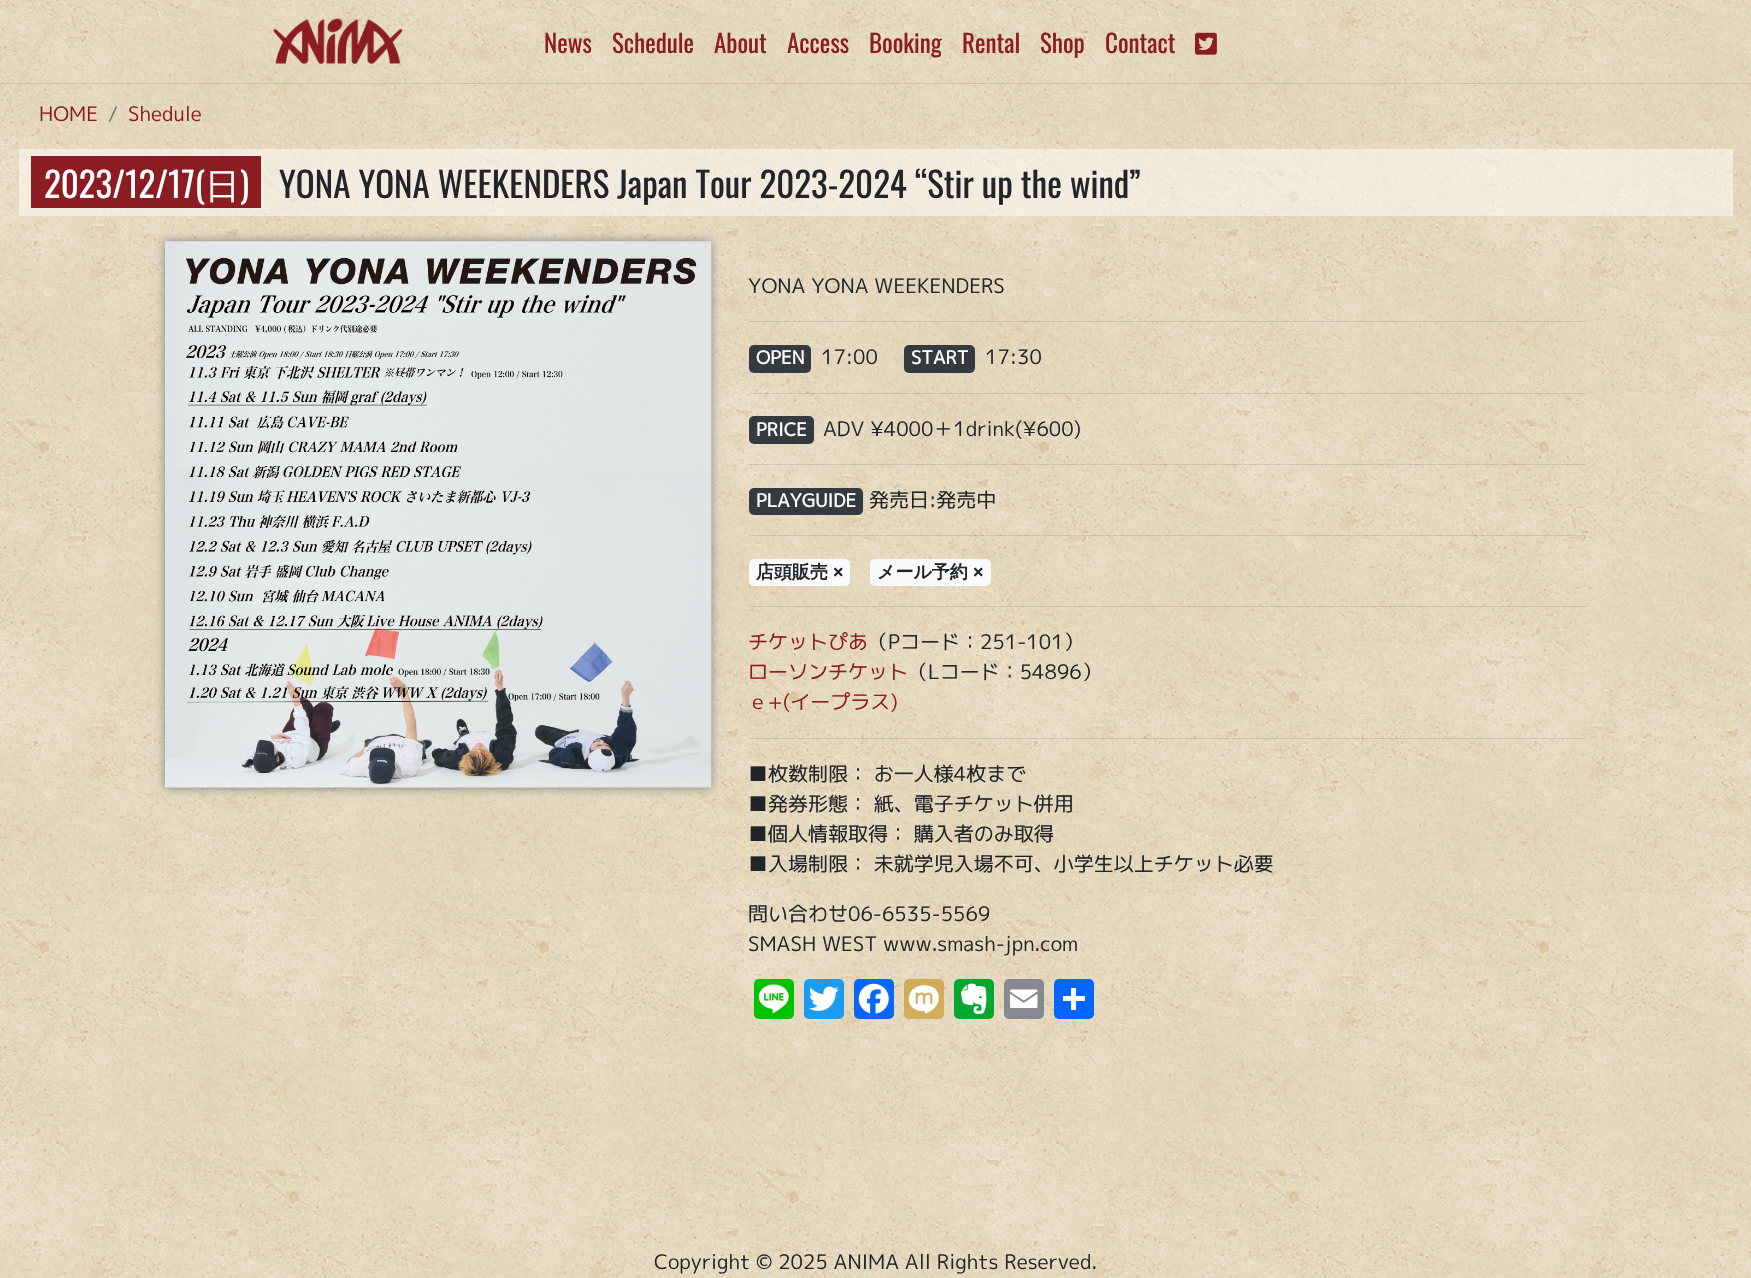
void draw(SkCanvas* c) {
SkPaint p;
p.setAntiAlias(true);
auto F=[&](const char* family, int weight, float size, bool italic = false){SkFontStyle style(weight, SkFontStyle::kNormal_Width,italic ? SkFontStyle::kItalic_Slant : SkFontStyle::kUpright_Slant);SkFont result(fontMgr->matchFamilyStyle(family, style), size);result.setSubpixel(true);return result;};
auto T=[&](const char* s, float x, float y, const SkFont& font){c->drawString(s, x, y, font, p);};
auto R=[&](float x, float y, float w, float h){c->drawRect(SkRect::MakeXYWH(x, y, w, h), p);};
auto Q=[&](float x, float y, float w, float h, float radius){c->drawRoundRect(SkRect::MakeXYWH(x, y, w, h), radius, radius, p);};
auto I=[&](const char* path, float x, float y, float w, float h){auto image = SkImages::DeferredFromEncodedData(SkData::MakeFromFileName(path));c->drawImageRect(image, SkRect::MakeXYWH(x, y, w, h), SkSamplingOptions());};
c->clear(0xffffffff);
I("1.png",0,0,1751,1278);
p.setColor(0x1a000000);
R(0,83,1751,1);
I("2.png",273,18,130,46);
auto f1 = F("Oswald",400,25);
p.setColor(0xff8b1c22);
T("News",544,53,f1);
T("Schedule",612,53,f1);
T("About",714,53,f1);
T("Access",787,53,f1);
T("Booking",869,53,f1);
T("Rental",962,53,f1);
T("Shop",1040,53,f1);
T("Contact",1105,53,f1);
I("3.png",1195,32,22,23);
auto f2 = F("M PLUS 1p",400,20);
T("HOME",39,121,f2);
p.setColor(0xff6c757d);
T("/",108,121,f2);
p.setColor(0xff8b1c22);
T("Shedule",128,121,f2);
p.setColor(0x80ffffff);
R(19,149,1714,67);
p.setColor(0xff8b1c22);
R(31,156,230,52);
auto f3 = F("Oswald",400,35);
p.setColor(0xffffffff);
T("2023/12/17(",44,198,f3);
auto f4 = F("WenQuanYi Zen Hei",500,35);
T("日",205,198,f4);
T(")",240,198,f3);
p.setColor(0xff212529);
T("YONA YONA WEEKENDERS Japan Tour 2023-2024 “Stir up the wind”",279,198,f3);
p.setColor(0xff808080);
p.setMaskFilter(SkMaskFilter::MakeBlur(kNormal_SkBlurStyle, 5));
c->drawRect(SkRect::MakeXYWH(165,241,546,547),p);
p.setMaskFilter(nullptr);
I("4.png",165,241,547,547);
p.setColor(0xff212529);
T("YONA YONA WEEKENDERS",748,293,f2);
p.setColor(0x1a000000);
R(749,321,837,1);
p.setColor(0xff343a40);
Q(749,345,62,28,5);
auto f5 = F("M PLUS 1p",700,18);
p.setColor(0xffffffff);
T("OPEN",756,364,f5);
p.setColor(0xff212529);
T("17:00",821,364,f2);
p.setColor(0xff343a40);
Q(904,345,71,28,5);
p.setColor(0xffffffff);
T("START",911,364,f5);
p.setColor(0xff212529);
T("17:30",985,364,f2);
p.setColor(0x1a000000);
R(749,393,837,1);
p.setColor(0xff343a40);
Q(749,416,65,28,5);
p.setColor(0xffffffff);
T("PRICE",756,436,f5);
p.setColor(0xff212529);
T("ADV ¥4000 ＋1drink(¥600)",823,436,f2);
p.setColor(0x1a000000);
R(749,464,837,1);
p.setColor(0xff343a40);
Q(749,488,114,27,5);
p.setColor(0xffffffff);
T("PLAYGUIDE",756,507,f5);
p.setColor(0xff212529);
T("発売日:発売中",869,507,f2);
p.setColor(0x1a000000);
R(749,535,837,1);
p.setColor(0xfff8f9fa);
Q(749,559,101,27,5);
auto f6 = F("WenQuanYi Zen Hei",700,18);
p.setColor(0xff212529);
T("店頭販売",756,578,f6);
auto f7 = F("Liberation Sans",700,18);
T("×",833,578,f7);
p.setColor(0xfff8f9fa);
Q(870,559,121,27,5);
p.setColor(0xff212529);
T("メール予約",877,578,f6);
T("×",973,578,f7);
p.setColor(0x1a000000);
R(749,606,837,1);
p.setColor(0xff8b1c22);
T("チケットぴあ",748,649,f2);
p.setColor(0xff212529);
T("（Pコード：251-101）",868,649,f2);
p.setColor(0xff8b1c22);
T("ローソンチケット",748,679,f2);
p.setColor(0xff212529);
T("（Lコード：54896）",908,679,f2);
p.setColor(0xff8b1c22);
T("ｅ+(イープラス)",748,709,f2);
p.setColor(0x1a000000);
R(749,738,837,1);
p.setColor(0xff212529);
T("■枚数制限： お一人様4枚まで",748,781,f2);
T("■発券形態： 紙、電子チケット併用",748,811,f2);
T("■個人情報取得： 購入者のみ取得",748,841,f2);
T("■入場制限： 未就学児入場不可、小学生以上チケット必要",748,871,f2);
T("問い合わせ06-6535-5569",748,921,f2);
T("SMASH WEST www.smash-jpn.com",748,951,f2);
p.setColor(0xff00c300);
Q(754,979,40,40,5);
I("5.png",758,984,31,29);
p.setColor(0xff1d9bf0);
Q(804,979,40,40,5);
I("6.png",809,986,30,25);
p.setColor(0xff0866ff);
Q(854,979,40,40,5);
I("7.png",858,983,31,31);
p.setColor(0xffd1ad5a);
Q(904,979,40,40,5);
I("8.png",908,985,31,29);
p.setColor(0xff00a82d);
Q(954,979,40,40,5);
I("9.png",961,983,26,31);
p.setColor(0xff888990);
Q(1004,979,40,40,5);
I("10.png",1010,989,28,19);
p.setColor(0xff0166ff);
Q(1054,979,40,40,5);
p.setColor(0xffffffff);
R(1071,988,5,22);
R(1063,996,22,5);
p.setColor(0xff212529);
T("Copyright © 2025 ANIMA All Rights Reserved.",654,1269,f2);
}
